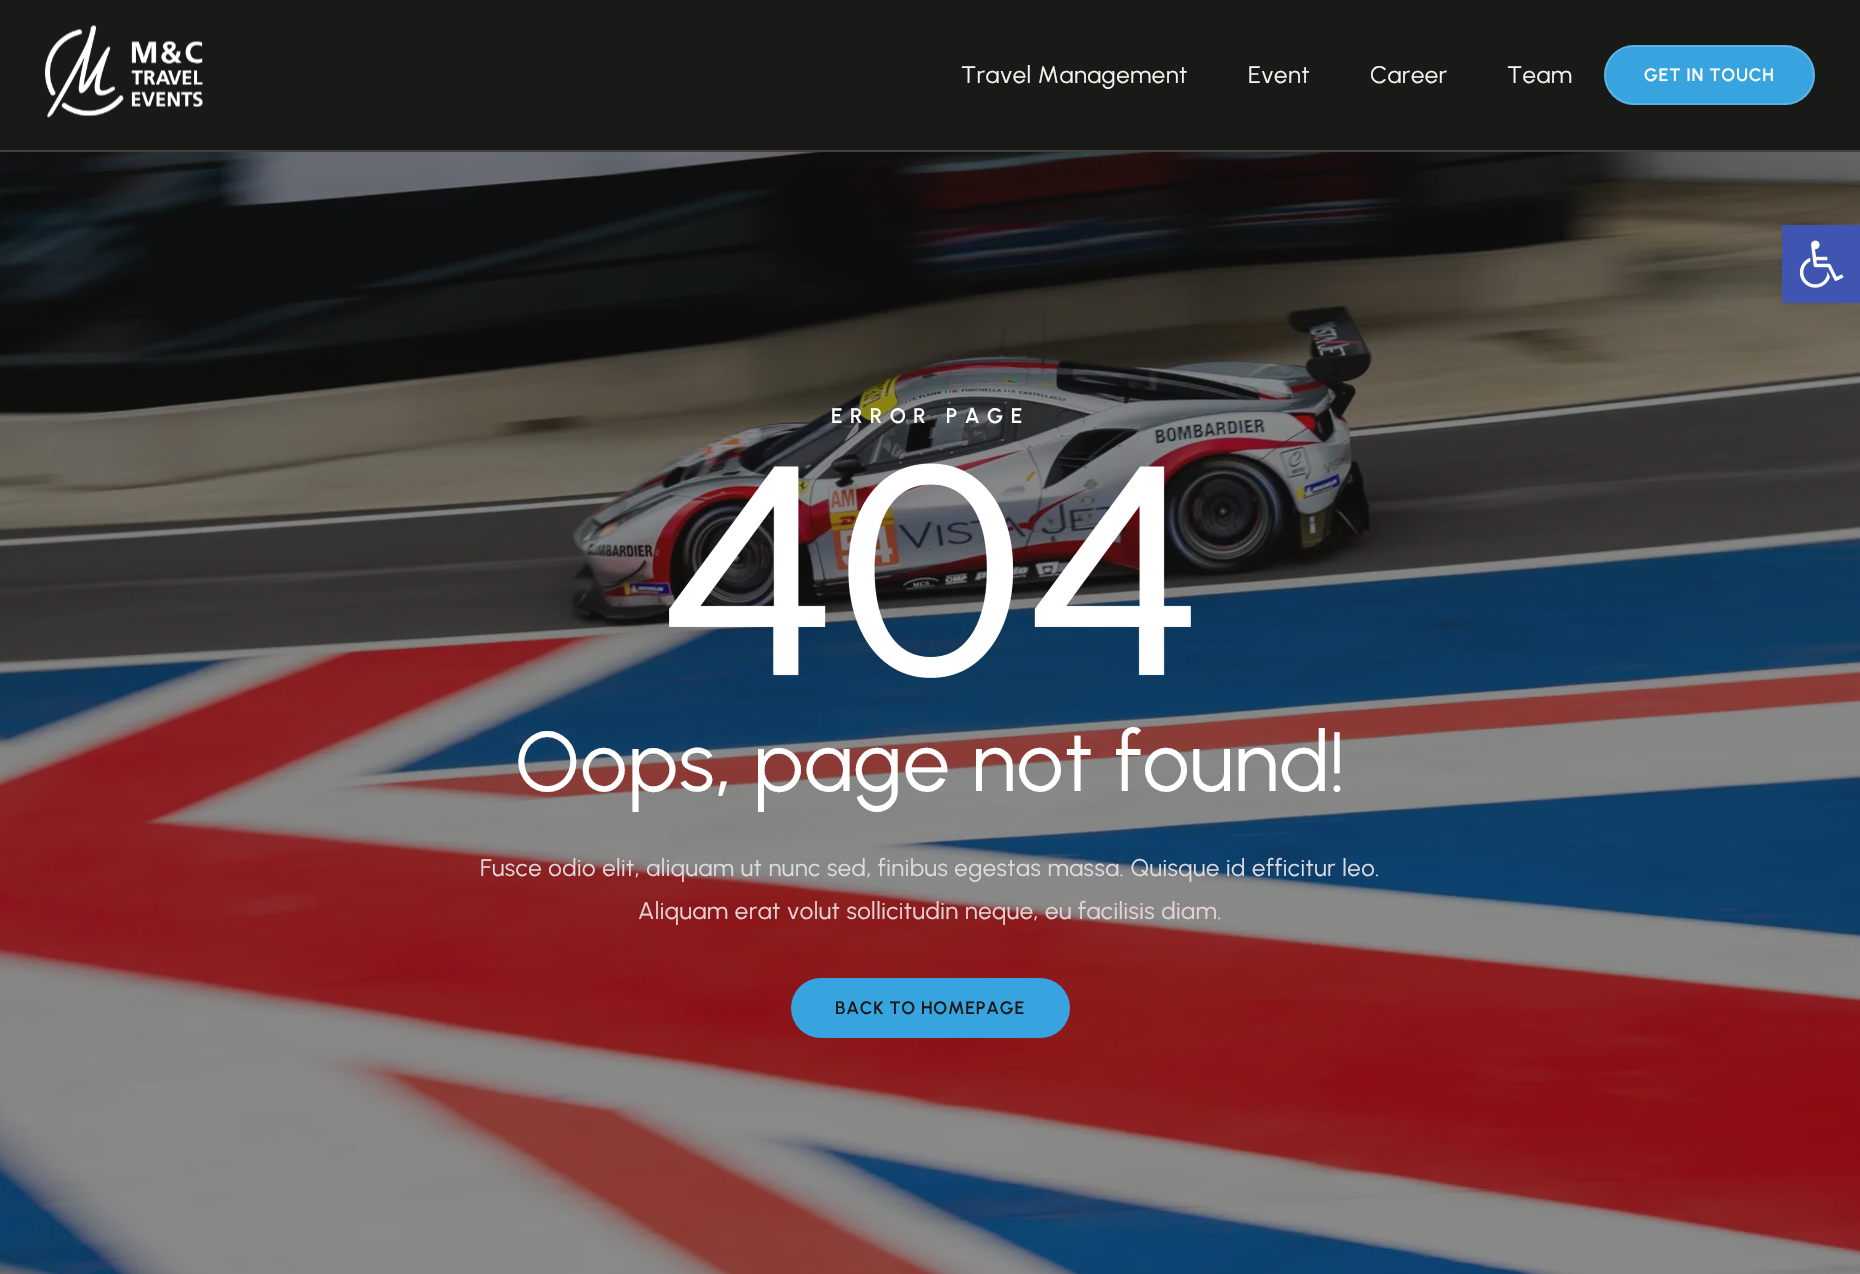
void draw(SkCanvas* c) {
SkPaint p;
p.setAntiAlias(true);
auto F=[&](const char* family, int weight, float size, bool italic = false){SkFontStyle style(weight, SkFontStyle::kNormal_Width,italic ? SkFontStyle::kItalic_Slant : SkFontStyle::kUpright_Slant);SkFont result(fontMgr->matchFamilyStyle(family, style), size);result.setSubpixel(true);return result;};
auto L=[&](const char* s, float x, float y, const SkFont& font, const SkPaint& ink, float letter, float word){std::vector<SkGlyphID> glyphs(font.countText(s, strlen(s), SkTextEncoding::kUTF8));std::vector<float> xs(glyphs.size());font.textToGlyphs(s, strlen(s), SkTextEncoding::kUTF8, glyphs);font.getXPos(glyphs, xs, x);float extra = 0;for (size_t i = 0; i < glyphs.size(); i++) {xs[i] += extra;extra += letter + word * (glyphs[i] == font.unicharToGlyph(' '));}c->drawTextBlob(SkTextBlob::MakeFromPosHGlyphs(glyphs, xs, y, font), 0, 0, ink);};
auto R=[&](float x, float y, float w, float h){c->drawRect(SkRect::MakeXYWH(x, y, w, h), p);};
auto Q=[&](float x, float y, float w, float h, float radius){c->drawRoundRect(SkRect::MakeXYWH(x, y, w, h), radius, radius, p);};
auto I=[&](const char* path, float x, float y, float w, float h){auto image = SkImages::DeferredFromEncodedData(SkData::MakeFromFileName(path));c->drawImageRect(image, SkRect::MakeXYWH(x, y, w, h), SkSamplingOptions());};
c->clear(0xffffffff);
p.setColor(0xff191917);
R(0,0,1860,150);
p.setColor(0xff41413e);
R(0,150,1860,2);
I("1.png",45,25,158,93);
auto f1 = F("Urbanist",400,24);
p.setColor(0xfff5f4ee);
L("Travel Management",961,83,f1,p,.45,0);
L("Event",1248,83,f1,p,.45,0);
L("Career",1370,83,f1,p,.45,0);
L("Team",1507,83,f1,p,.45,0);
p.setColor(0xff37a4df);
Q(1604,45,211,60,30);
p.setStroke(true);
p.setStrokeWidth(2);
p.setColor(0x30ffffff);
c->drawRoundRect(SkRect::MakeXYWH(1605,46,209,58),29,29,p);
auto f2 = F("Urbanist",600,18);
p.setStroke(false);
p.setColor(0xffffffff);
L("GET IN TOUCH",1644,81,f2,p,.75,0);
I("3.png",0,152,1860,1122);
p.setColor(0x1a000000);
p.setMaskFilter(SkMaskFilter::MakeBlur(kNormal_SkBlurStyle, 7.5));
c->drawRect(SkRect::MakeXYWH(1782,225,78,78),p);
p.setMaskFilter(nullptr);
p.setColor(0xff4054b2);
R(1782,225,78,78);
I("2.png",1799,240,45,48);
auto f3 = F("Urbanist",600,21);
p.setColor(0xffffffff);
L("ERROR PAGE",831,423,f3,p,7.5,0);
I("4.png",669,463,522,215);
auto f4 = F("Urbanist",400,84);
L("Oops, page not found!",515,791,f4,p,.45,0);
p.setColor(0xffdddbde);
L("Fusce odio elit, aliquam ut nunc sed, finibus egestas massa. Quisque id efficitur leo.",480,876,f1,p,.45,0);
p.setColor(0xffe4d3d3);
L("Aliquam erat volut sollicitudin neque, eu facilisis diam.",638,919,f1,p,.45,0);
p.setColor(0xff37a4df);
Q(791,978,279,60,30);
p.setColor(0xff191917);
L("BACK TO HOMEPAGE",835,1014,f2,p,.75,0);
}
